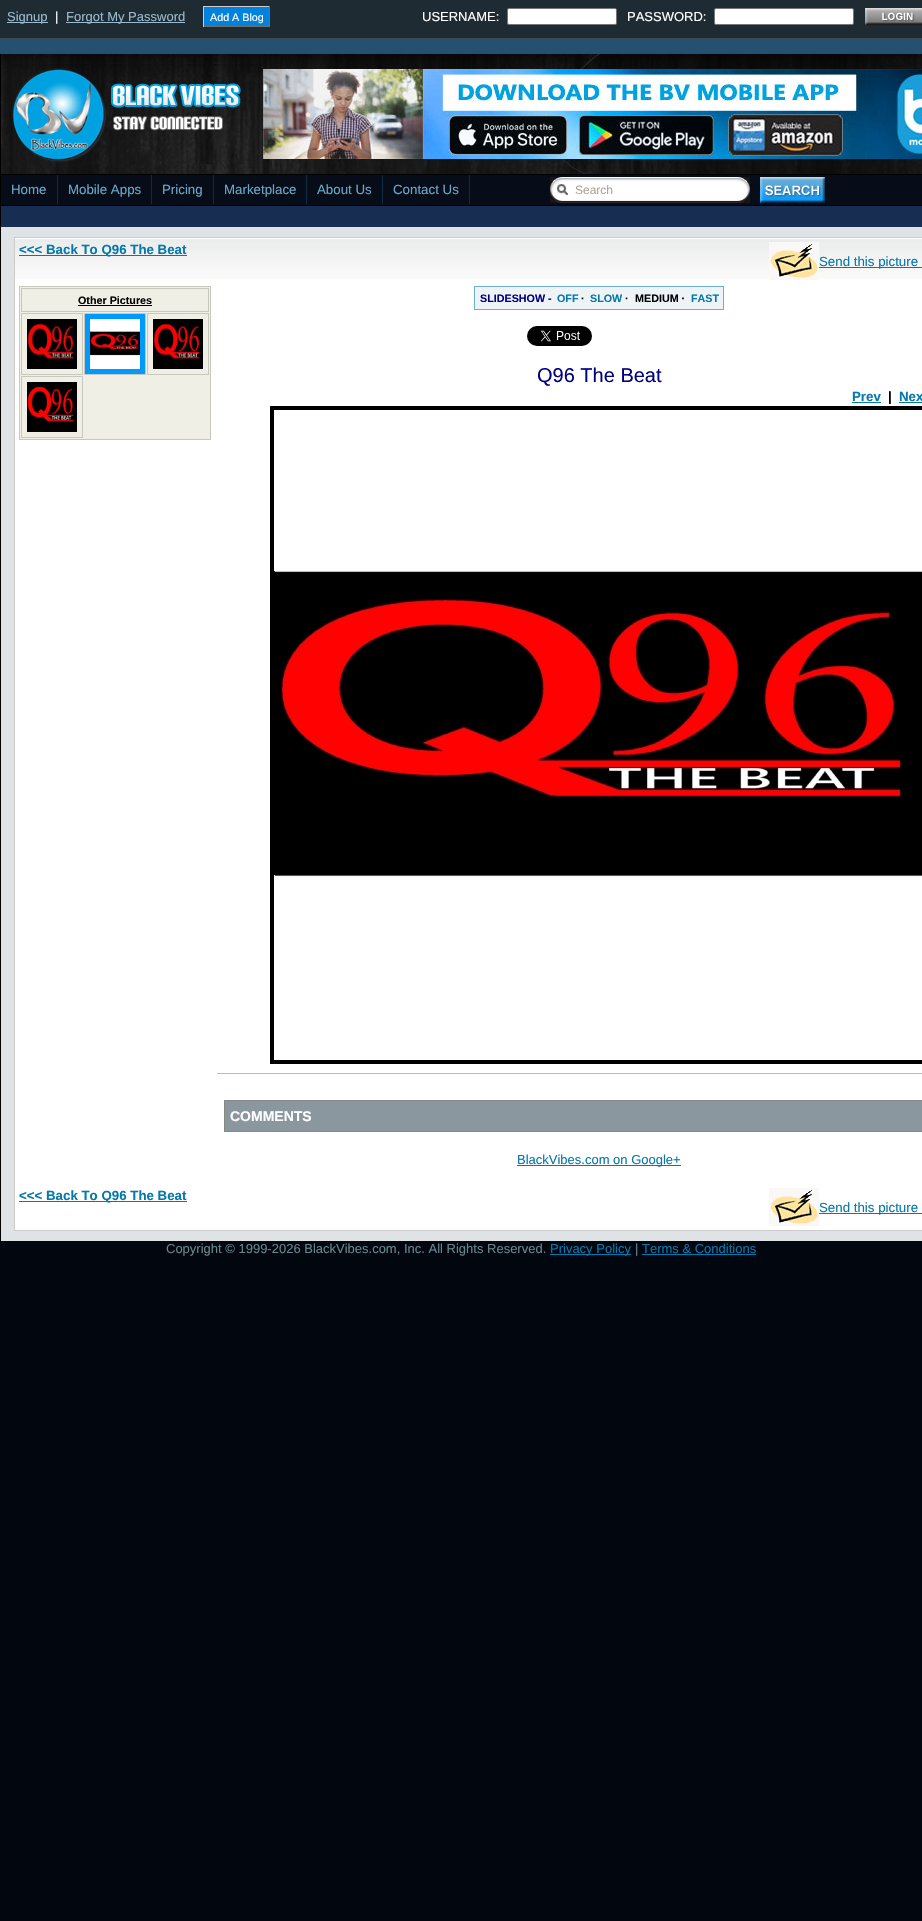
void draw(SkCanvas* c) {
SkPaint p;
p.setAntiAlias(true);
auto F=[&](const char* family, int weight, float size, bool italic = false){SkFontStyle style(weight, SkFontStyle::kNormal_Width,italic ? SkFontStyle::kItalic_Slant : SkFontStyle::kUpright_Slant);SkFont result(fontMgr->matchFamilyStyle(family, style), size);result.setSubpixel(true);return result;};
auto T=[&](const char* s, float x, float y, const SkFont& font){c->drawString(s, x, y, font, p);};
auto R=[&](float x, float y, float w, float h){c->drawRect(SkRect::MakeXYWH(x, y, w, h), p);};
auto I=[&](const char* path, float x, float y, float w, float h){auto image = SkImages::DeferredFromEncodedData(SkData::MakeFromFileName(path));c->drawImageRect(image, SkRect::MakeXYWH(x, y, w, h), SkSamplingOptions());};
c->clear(0xff02070f);
I("1.png",0,39,922,15);
p.setColor(0xff1f2b33);
R(0,0,922,38);
p.setColor(0xff3f4950);
R(0,38,922,1);
p.setColor(0xff9bbace);
R(7,22,41,1);
auto f1 = F("Liberation Sans",400,13);
T("Signup",7,21,f1);
p.setColor(0xffffffff);
T("|",55,21,f1);
p.setColor(0xff9bbace);
R(66,22,119,1);
T("Forgot My Password",66,21,f1);
p.setColor(0xff0282dd);
R(204,7,65,19);
auto f2 = F("Liberation Sans",400,10.75);
p.setColor(0xffffffff);
T("Add A Blog",210,21,f2);
p.setColor(0xffcccccc);
R(203,6,67,1);
p.setColor(0xff716f64);
R(269,6,1,21);
R(203,26,67,1);
p.setColor(0xffcccccc);
R(203,6,1,21);
p.setColor(0xffffffff);
T("USERNAME:",422,21,f1);
c->drawRoundRect(SkRect::MakeXYWH(507.5,8.5,109,16),1.5,1.5,p);
p.setStroke(true);
p.setStrokeWidth(1);
p.setColor(0xff767676);
c->drawRoundRect(SkRect::MakeXYWH(507.5,8.5,109,16),1.5,1.5,p);
p.setStroke(false);
p.setColor(0xffffffff);
T("PASSWORD:",627,21,f1);
c->drawRoundRect(SkRect::MakeXYWH(714.5,8.5,139,16),1.5,1.5,p);
p.setStroke(true);
p.setColor(0xff767676);
c->drawRoundRect(SkRect::MakeXYWH(714.5,8.5,139,16),1.5,1.5,p);
I("2.png",865,8,57,17);
p.setStroke(false);
p.setColor(0xff000000);
R(0,54,1,1187);
I("3.png",1,54,921,120);
I("4.png",12,64,249,100);
I("5.png",263,69,659,90);
R(1,174,921,1);
R(1,205,921,1);
p.setColor(0xff060d18);
R(1,175,921,30);
p.setColor(0xff122b41);
R(57,175,1,29);
auto f3 = F("Liberation Sans",400,13.3);
p.setColor(0xff6ca7c7);
T("Home",11,194,f3);
p.setColor(0xff122b41);
R(151,175,1,29);
p.setColor(0xff6ca7c7);
T("Mobile Apps",68,194,f3);
p.setColor(0xff122b41);
R(213,175,1,29);
p.setColor(0xff6ca7c7);
T("Pricing",162,194,f3);
p.setColor(0xff122b41);
R(306,175,1,29);
p.setColor(0xff6ca7c7);
T("Marketplace",224,194,f3);
p.setColor(0xff122b41);
R(382,175,1,29);
p.setColor(0xff6ca7c7);
T("About Us",317,194,f3);
p.setColor(0xff122b41);
R(469,175,1,29);
p.setColor(0xff6ca7c7);
T("Contact Us",393,194,f3);
I("6.png",550,177,200,26);
auto f4 = F("Liberation Sans",400,12);
p.setColor(0xffaea592);
T("Search",575,194,f4);
I("7.png",760,177,65,26);
p.setColor(0xff172e52);
R(1,206,921,21);
p.setColor(0xffdfe3e6);
R(1,227,921,1014);
p.setColor(0xffffffff);
R(15,238,907,992);
I("8.png",15,239,907,40);
p.setStroke(true);
p.setColor(0xffcccccc);
c->drawRect(SkRect::MakeXYWH(14.5,237.5,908,993),p);
p.setStroke(false);
p.setColor(0xff0578ad);
R(19,255,168,1);
auto f5 = F("Liberation Sans",700,13.3);
T("<<< Back To Q96 The Beat",19,254,f5);
I("9.png",769,242,50,38);
R(819,267,103,1);
T("Send this picture",819,266,f3);
p.setColor(0xfff0efe6);
c->drawRect(SkRect::MakeXYWH(19.5,286.5,191,153),p);
p.setStroke(true);
p.setColor(0xffc9c8bc);
c->drawRect(SkRect::MakeXYWH(19.5,286.5,191,153),p);
c->drawRect(SkRect::MakeXYWH(21.5,288.5,187,23),p);
auto f6 = F("Liberation Sans",700,10.75);
p.setStroke(false);
p.setColor(0xff000000);
T("Other Pictures",78,304,f6);
R(78,305,74,1);
p.setStroke(true);
p.setColor(0xffc9c8bc);
c->drawRect(SkRect::MakeXYWH(21.5,313.5,61,61),p);
I("10.png",27,319,50,50);
p.setStroke(false);
p.setColor(0xff0099ff);
c->drawRect(SkRect::MakeXYWH(84.5,313.5,61,61),p);
p.setStroke(true);
p.setColor(0xffc9c8bc);
c->drawRect(SkRect::MakeXYWH(84.5,313.5,61,61),p);
I("11.png",90,319,50,50);
c->drawRect(SkRect::MakeXYWH(147.5,313.5,61,61),p);
I("12.png",153,319,50,50);
c->drawRect(SkRect::MakeXYWH(21.5,376.5,61,61),p);
I("13.png",27,382,50,50);
p.setStroke(false);
p.setColor(0xffeef3f6);
R(475,287,248,22);
p.setColor(0xff6daed5);
R(474,286,250,1);
R(723,286,1,24);
R(474,309,250,1);
R(474,286,1,24);
p.setColor(0xff000080);
T("SLIDESHOW -",480,302,f6);
p.setColor(0xff0578ad);
T("OFF",557,302,f6);
p.setColor(0xff000000);
T("·",581,302,f6);
p.setColor(0xff0578ad);
T("SLOW",590,302,f6);
p.setColor(0xff000000);
T("·",625,302,f6);
T("MEDIUM ·",635,302,f6);
p.setColor(0xff0578ad);
T("FAST",691,302,f6);
I("14.png",527,326,65,20);
auto f7 = F("Liberation Sans",400,20);
p.setColor(0xff000080);
T("Q96 The Beat",537,382,f7);
p.setColor(0xff0578ad);
T("Prev",852,401,f5);
R(852,402,29,1);
p.setColor(0xff000000);
T("|",888,401,f5);
p.setColor(0xff0578ad);
T("Nex",899,401,f5);
R(899,402,23,1);
p.setColor(0xff000000);
R(270,406,652,658);
I("15.png",274,410,648,650);
p.setColor(0xffbababa);
R(217,1073,705,1);
p.setColor(0xff8b979f);
c->drawRect(SkRect::MakeXYWH(224.5,1100.5,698,31),p);
p.setStroke(true);
p.setColor(0xff888888);
c->drawRect(SkRect::MakeXYWH(224.5,1100.5,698,31),p);
auto f8 = F("Liberation Sans",700,14);
p.setStroke(false);
p.setColor(0xffffffff);
T("COMMENTS",230,1121,f8);
p.setColor(0xff0578ad);
R(517,1165,164,1);
T("BlackVibes.com on Google+",517,1164,f1);
R(19,1201,168,1);
T("<<< Back To Q96 The Beat",19,1200,f5);
I("9.png",769,1188,50,38);
R(819,1213,103,1);
T("Send this picture",819,1212,f3);
p.setColor(0xff668790);
T("Copyright © 1999-2026 BlackVibes.com, Inc. All Rights Reserved.",166,1253,f1);
p.setColor(0xff0578ad);
R(550,1254,81,1);
T("Privacy Policy",550,1253,f1);
p.setColor(0xff668790);
T("|",635,1253,f1);
p.setColor(0xff0578ad);
T("Terms & Conditions",642,1253,f1);
R(642,1254,114,1);
}
